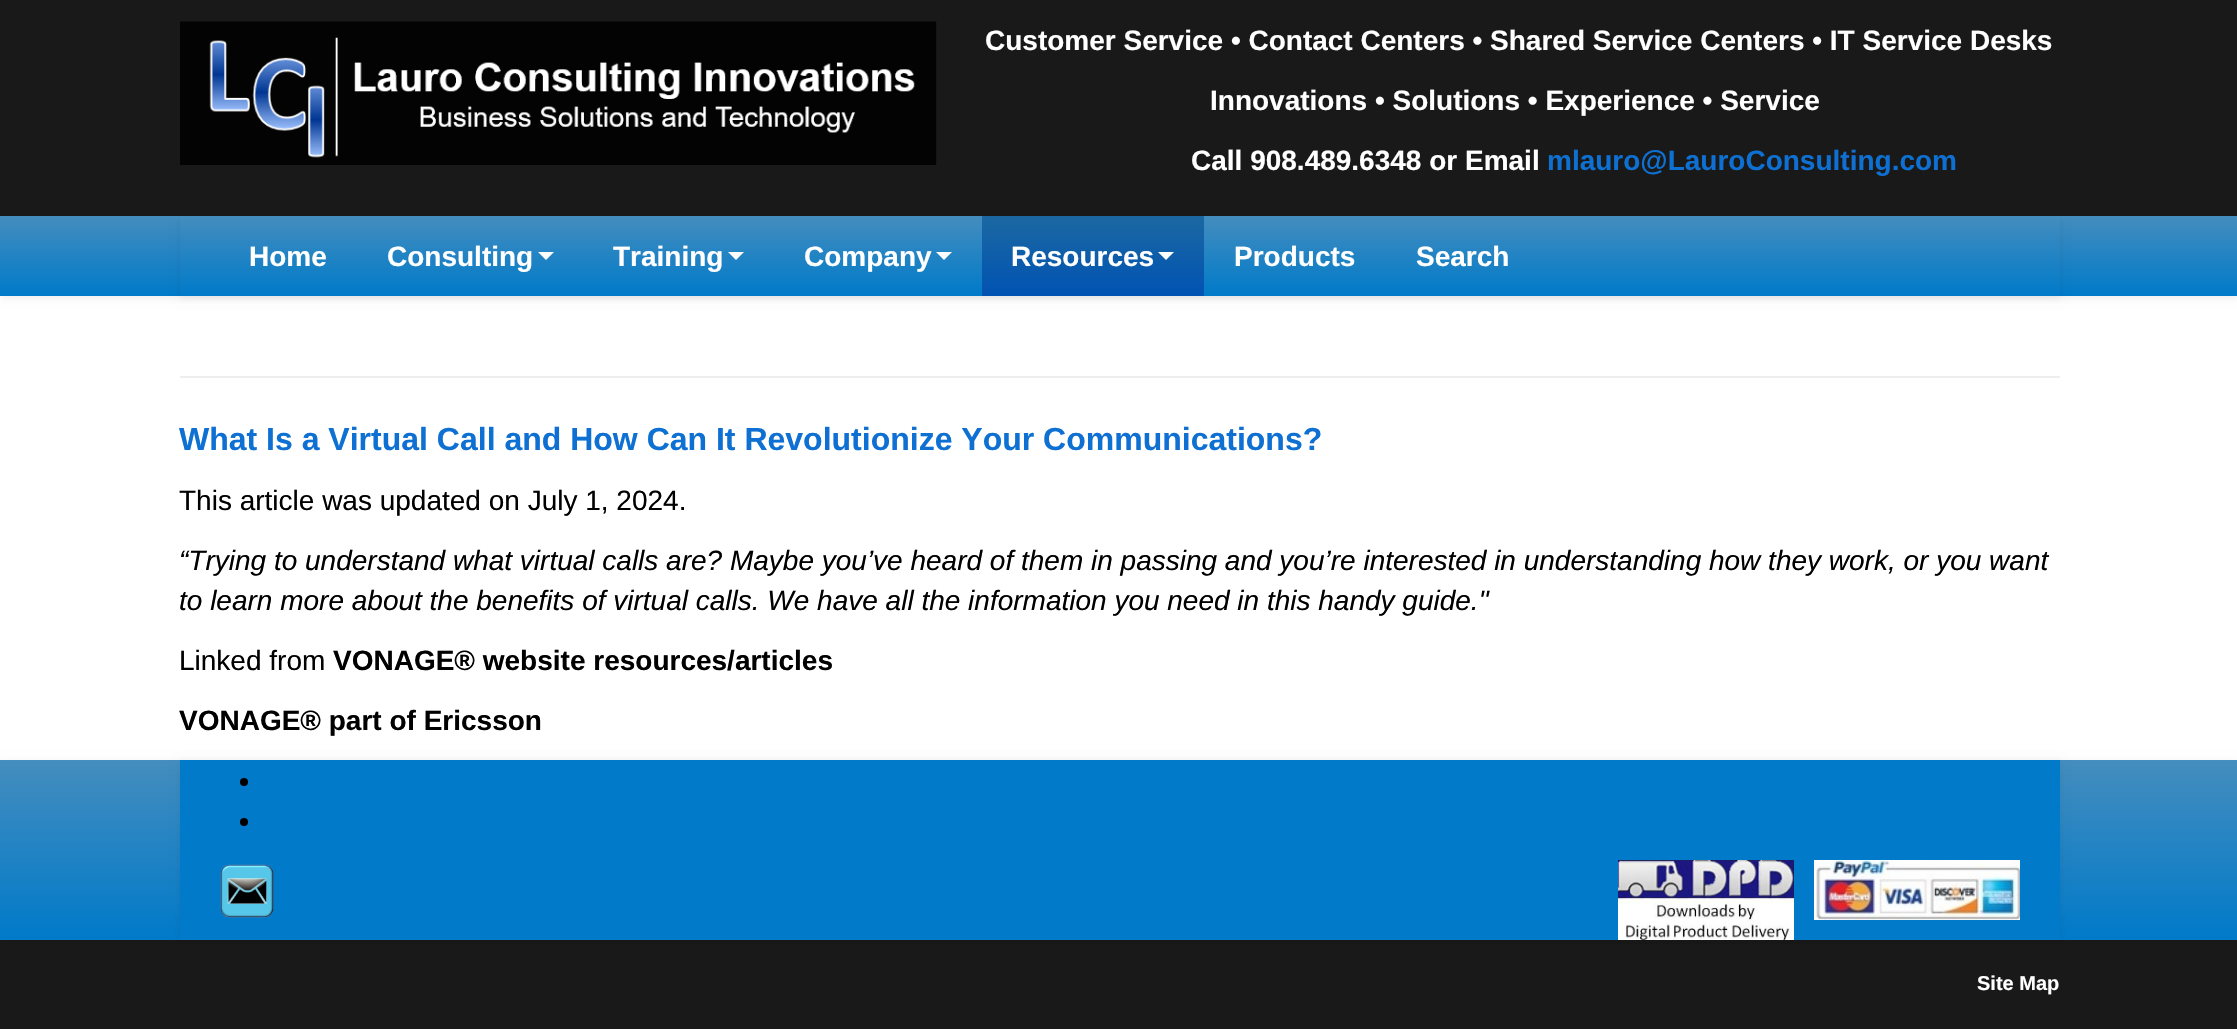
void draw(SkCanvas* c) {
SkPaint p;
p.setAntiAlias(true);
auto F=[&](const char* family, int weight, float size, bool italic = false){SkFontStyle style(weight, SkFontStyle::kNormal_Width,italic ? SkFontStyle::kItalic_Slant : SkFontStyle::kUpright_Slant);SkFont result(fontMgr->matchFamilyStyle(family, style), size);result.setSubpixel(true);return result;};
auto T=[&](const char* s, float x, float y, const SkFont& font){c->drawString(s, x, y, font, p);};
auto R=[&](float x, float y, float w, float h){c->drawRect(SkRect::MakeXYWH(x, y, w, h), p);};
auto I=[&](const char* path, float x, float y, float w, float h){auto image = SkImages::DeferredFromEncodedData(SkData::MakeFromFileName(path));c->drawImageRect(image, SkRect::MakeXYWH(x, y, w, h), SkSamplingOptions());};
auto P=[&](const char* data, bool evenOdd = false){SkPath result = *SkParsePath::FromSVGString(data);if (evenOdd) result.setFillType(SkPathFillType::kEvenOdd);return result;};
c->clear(0xffffffff);
p.setColor(0xff191919);
R(0,0,2237,216);
I("1.png",180,21,757,144);
auto f1 = F("Liberation Sans",700,28);
p.setColor(0xffffffff);
T("Customer Service • Contact Centers • Shared Service Centers • IT Service Desks",985,50,f1);
T("Innovations • Solutions • Experience • Service",1210,110,f1);
T("Call 908.489.6348 or Email",1191,170,f1);
p.setColor(0xff0d70d2);
T("mlauro@LauroConsulting.com",1547,170,f1);
p.setColor(0x12000000);
p.setMaskFilter(SkMaskFilter::MakeBlur(kNormal_SkBlurStyle, 4));
c->drawRect(SkRect::MakeXYWH(0,218,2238,80),p);
p.setMaskFilter(nullptr);
{
const SkColor colors[] = {0xff448dbe,0xff007ac9};
const float stops[] = {0,1};
const SkPoint ends[] = {{1119,216}, {1119,296}};
p.setShader(SkGradientShader::MakeLinear(ends, colors, stops, 2, SkTileMode::kClamp));
p.setAlpha(255);
}
R(0,216,2237,80);
c->save();
c->clipPath(P("M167 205h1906v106h-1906zm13 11h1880v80h-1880z",true),true);
p.setShader(nullptr);
p.setColor(0x12000000);
p.setMaskFilter(SkMaskFilter::MakeBlur(kNormal_SkBlurStyle, 4));
c->drawRect(SkRect::MakeXYWH(180,218,1880,80),p);
p.setMaskFilter(nullptr);
c->restore();
p.setColor(0xffffffff);
T("Home",249,266,f1);
T("Consulting",387,266,f1);
c->drawPath(P("M538 252h16l-8 8z"),p);
T("Training",613,266,f1);
c->drawPath(P("M728 252h16l-8 8z"),p);
T("Company",804,266,f1);
c->drawPath(P("M936 252h16l-8 8z"),p);
{
const SkColor colors[] = {0xff1c68a2,0xff0053b3};
const float stops[] = {0,1};
const SkPoint ends[] = {{1093,216}, {1093,296}};
p.setShader(SkGradientShader::MakeLinear(ends, colors, stops, 2, SkTileMode::kClamp));
p.setAlpha(255);
}
R(982,216,222,80);
p.setShader(nullptr);
p.setColor(0xffffffff);
T("Resources",1011,266,f1);
c->drawPath(P("M1158 252h16l-8 8z"),p);
T("Products",1234,266,f1);
T("Search",1416,266,f1);
p.setColor(0xffeeeeee);
R(180,376,1880,2);
auto f2 = F("Liberation Sans",700,32);
p.setColor(0xff0d70d2);
T("What Is a Virtual Call and How Can It Revolutionize Your Communications?",179,450,f2);
auto f3 = F("Liberation Sans",400,28);
p.setColor(0xff000000);
T("This article was updated on July 1, 2024.",179,510,f3);
auto f4 = F("Liberation Sans",400,28,true);
T("“Trying to understand what virtual calls are? Maybe you’ve heard of them in passing and you’re interested in understanding how they work, or you want",179,570,f4);
T("to learn more about the benefits of virtual calls. We have all the information you need in this handy guide.\"",179,610,f4);
T("Linked from",179,670,f3);
T("VONAGE® website resources/articles",333,670,f1);
T("VONAGE® part of Ericsson",179,730,f1);
p.setColor(0xff191919);
R(0,940,2237,89);
p.setColor(0x12000000);
p.setMaskFilter(SkMaskFilter::MakeBlur(kNormal_SkBlurStyle, 4));
c->drawRect(SkRect::MakeXYWH(0,762,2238,180),p);
p.setMaskFilter(nullptr);
{
const SkColor colors[] = {0xff448dbe,0xff007ac9};
const float stops[] = {0,1};
const SkPoint ends[] = {{1119,760}, {1119,940}};
p.setShader(SkGradientShader::MakeLinear(ends, colors, stops, 2, SkTileMode::kClamp));
p.setAlpha(255);
}
R(0,760,2237,180);
p.setShader(nullptr);
p.setColor(0x12000000);
p.setMaskFilter(SkMaskFilter::MakeBlur(kNormal_SkBlurStyle, 4));
c->drawRect(SkRect::MakeXYWH(180,762,1880,180),p);
p.setMaskFilter(nullptr);
p.setColor(0xff007ac9);
R(180,760,1880,180);
p.setColor(0xff000000);
c->drawCircle(244,782,4,p);
c->drawCircle(244,822,4,p);
I("2.png",220,864,54,54);
I("3.png",1618,860,176,80);
I("4.png",1814,860,206,60);
auto f5 = F("Liberation Sans",700,20);
p.setColor(0xffffffff);
T("Site Map",1977,990,f5);
}
